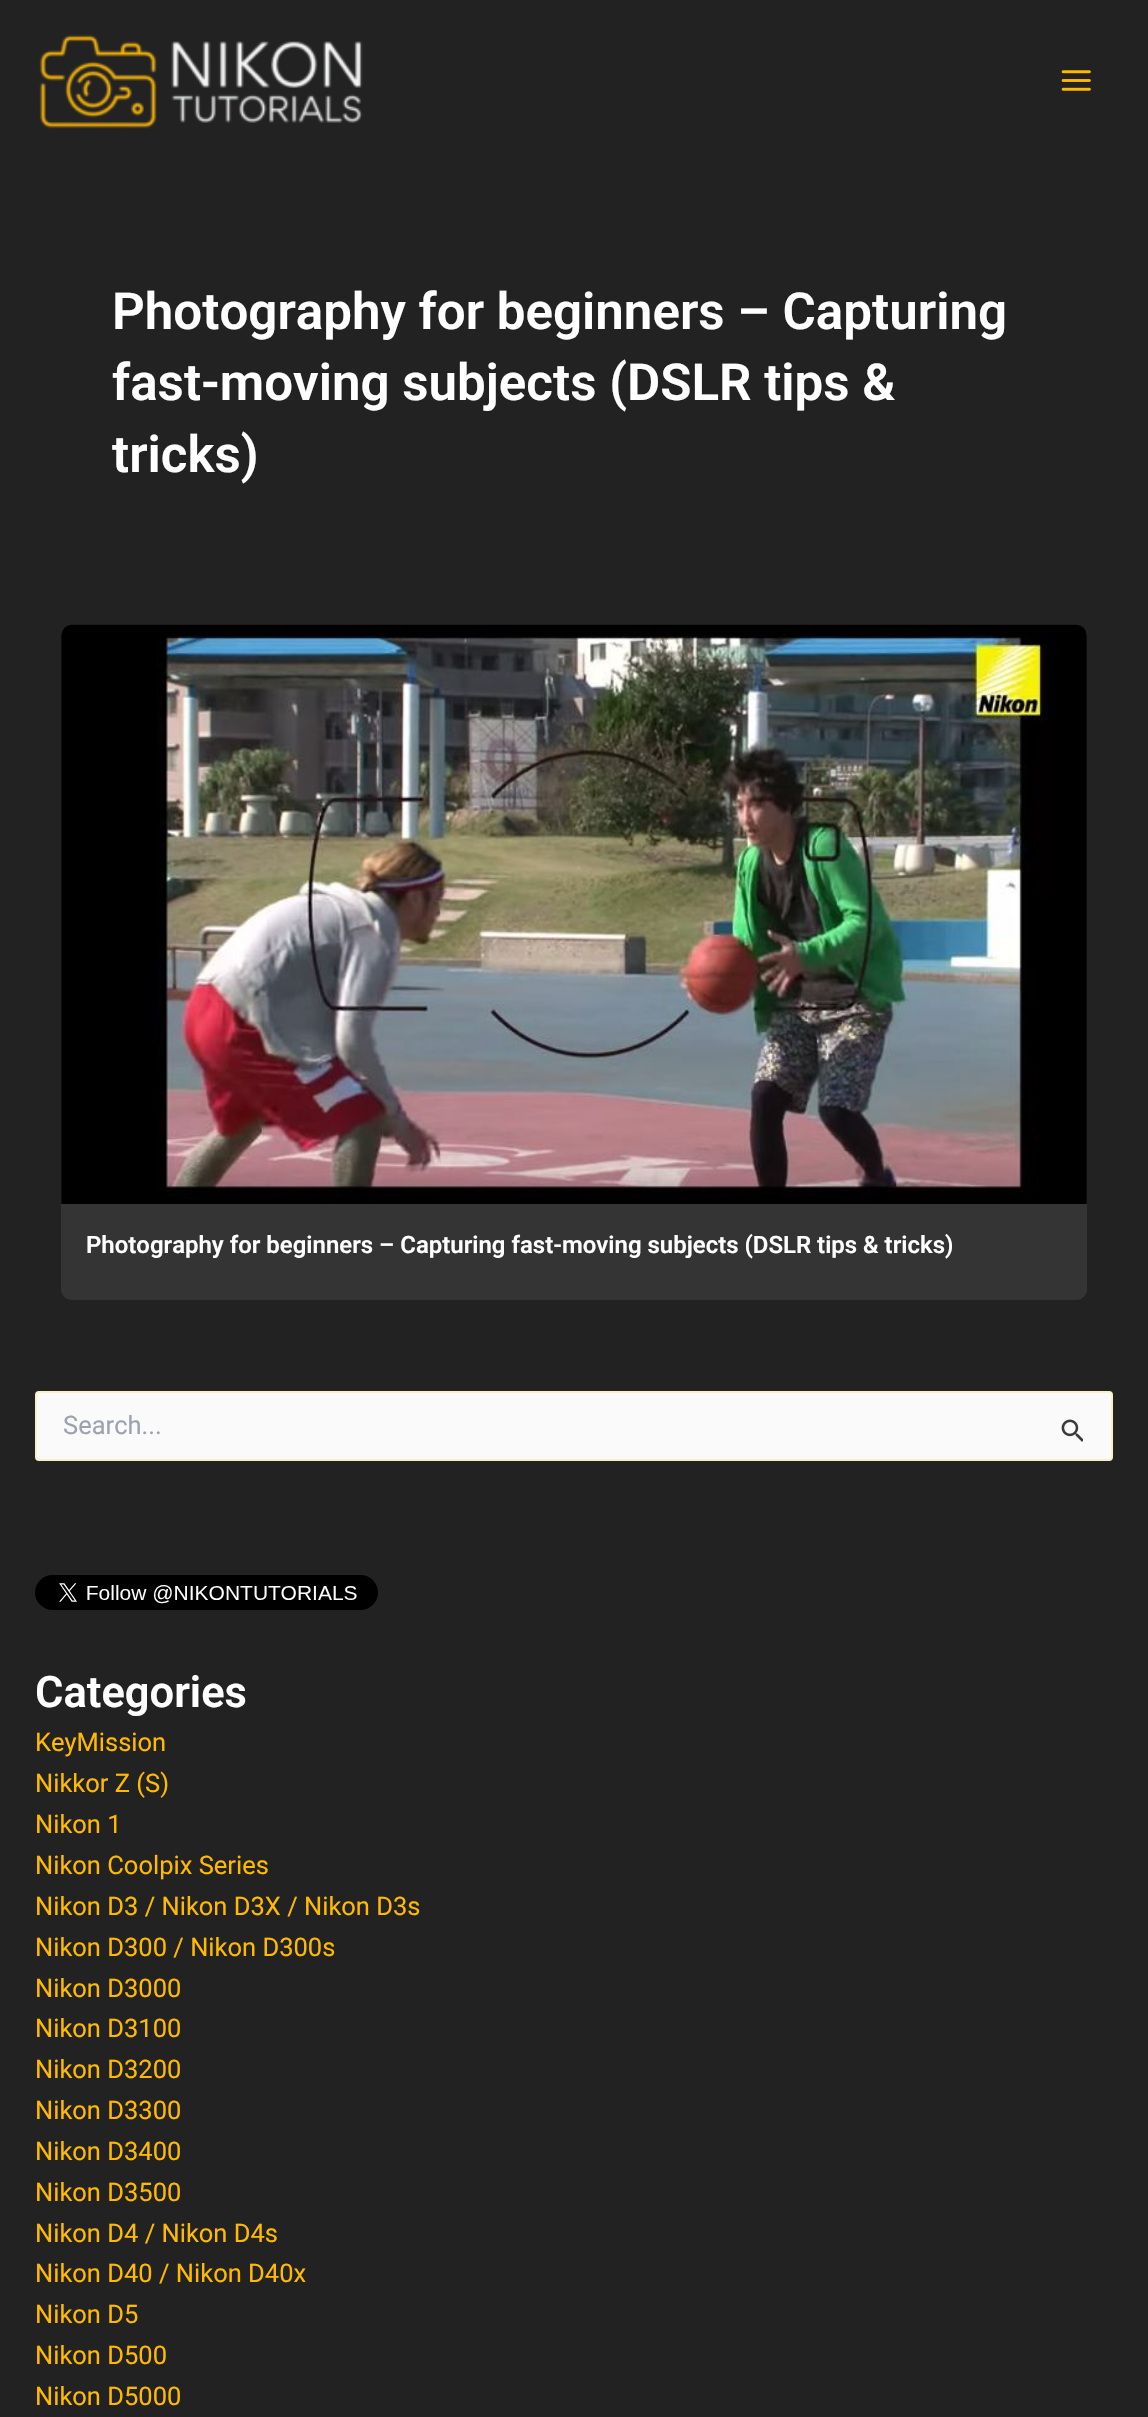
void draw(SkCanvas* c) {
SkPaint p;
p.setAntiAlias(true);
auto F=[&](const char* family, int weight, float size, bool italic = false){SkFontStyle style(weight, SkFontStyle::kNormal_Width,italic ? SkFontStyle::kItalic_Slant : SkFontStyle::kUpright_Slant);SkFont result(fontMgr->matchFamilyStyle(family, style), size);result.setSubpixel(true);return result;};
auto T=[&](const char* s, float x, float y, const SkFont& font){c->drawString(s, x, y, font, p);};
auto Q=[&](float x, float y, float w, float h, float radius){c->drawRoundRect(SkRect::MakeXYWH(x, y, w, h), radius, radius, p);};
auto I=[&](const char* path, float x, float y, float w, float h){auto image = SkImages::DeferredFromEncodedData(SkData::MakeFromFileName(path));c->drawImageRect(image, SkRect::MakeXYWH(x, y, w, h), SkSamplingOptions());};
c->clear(0xff222222);
I("1.png",39,34,324,95);
I("2.png",1061,70,30,21);
auto f1 = F("Roboto",600,51.1);
p.setColor(0xffffffff);
T("Photography for beginners – Capturing",112,329,f1);
T("fast-moving subjects (DSLR tips &",112,400,f1);
T("tricks)",112,472,f1);
p.setColor(0xff343434);
Q(61,625,1026,675,11);
I("3.png",61,624,1026,580);
auto f2 = F("Roboto",600,23.95);
p.setColor(0xffffffff);
T("Photography for beginners – Capturing fast-moving subjects (DSLR tips & tricks)",86,1253,f2);
p.setColor(0xfffafafa);
c->drawRoundRect(SkRect::MakeXYWH(36,1392,1076,68),3,3,p);
p.setStroke(true);
p.setStrokeWidth(2);
p.setColor(0xfff9f0c8);
c->drawRoundRect(SkRect::MakeXYWH(36,1392,1076,68),3,3,p);
auto f3 = F("Roboto",400,25.5);
p.setStroke(false);
p.setColor(0xff9ca3af);
T("Search...",63,1434,f3);
I("4.png",1061,1419,22,23);
I("5.png",35,1575,343,35);
auto f4 = F("Roboto",600,43.5);
p.setColor(0xffffffff);
T("Categories",35,1707,f4);
p.setColor(0xffffba00);
T("KeyMission",35,1751,f3);
T("Nikkor Z (S)",35,1792,f3);
T("Nikon 1",35,1833,f3);
T("Nikon Coolpix Series",35,1874,f3);
T("Nikon D3 / Nikon D3X / Nikon D3s",35,1915,f3);
T("Nikon D300 / Nikon D300s",35,1956,f3);
T("Nikon D3000",35,1997,f3);
T("Nikon D3100",35,2037,f3);
T("Nikon D3200",35,2078,f3);
T("Nikon D3300",35,2119,f3);
T("Nikon D3400",35,2160,f3);
T("Nikon D3500",35,2201,f3);
T("Nikon D4 / Nikon D4s",35,2242,f3);
T("Nikon D40 / Nikon D40x",35,2282,f3);
T("Nikon D5",35,2323,f3);
T("Nikon D500",35,2364,f3);
T("Nikon D5000",35,2405,f3);
}
